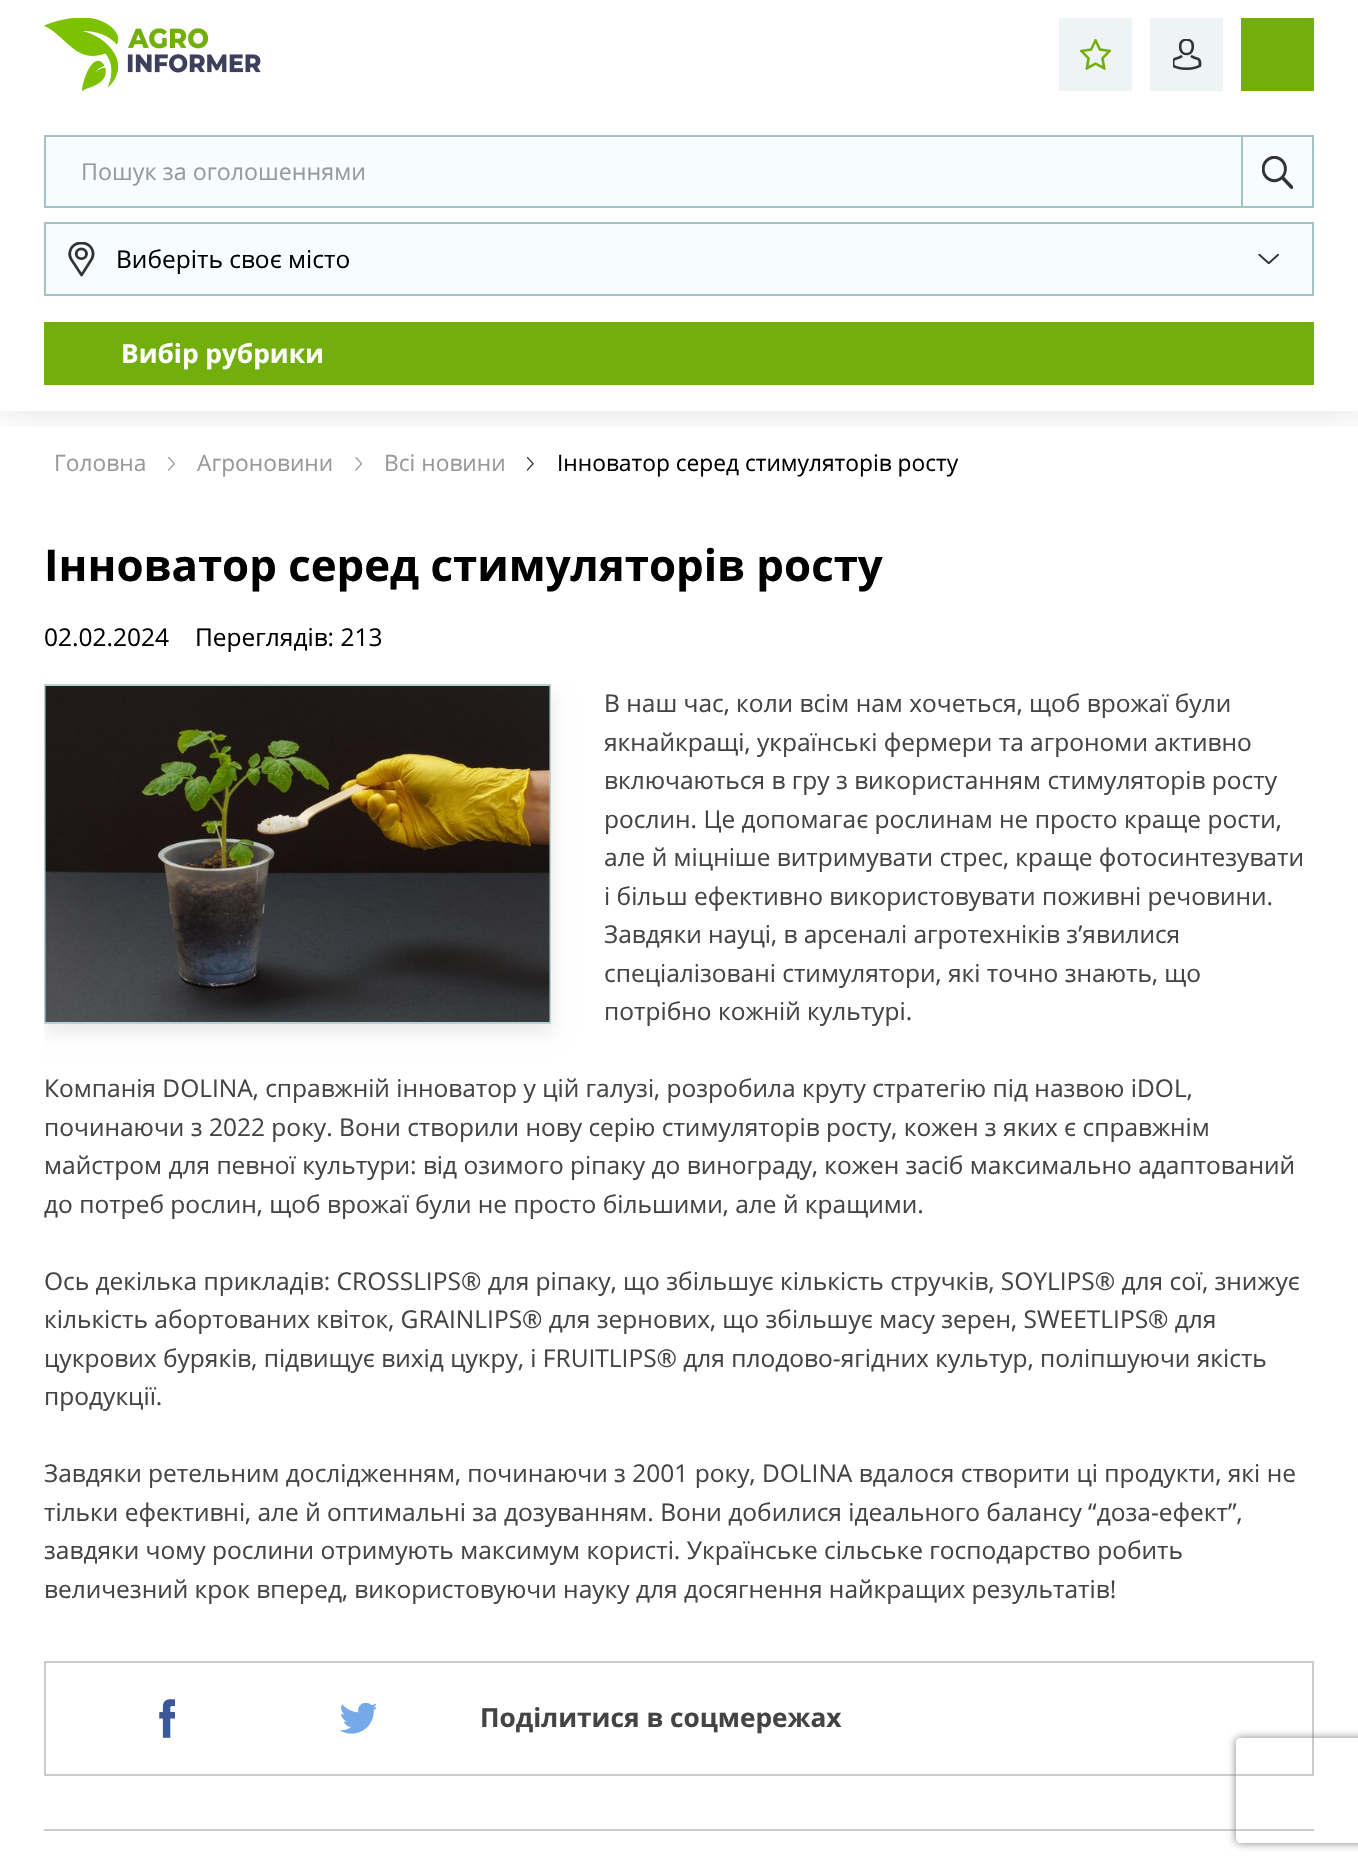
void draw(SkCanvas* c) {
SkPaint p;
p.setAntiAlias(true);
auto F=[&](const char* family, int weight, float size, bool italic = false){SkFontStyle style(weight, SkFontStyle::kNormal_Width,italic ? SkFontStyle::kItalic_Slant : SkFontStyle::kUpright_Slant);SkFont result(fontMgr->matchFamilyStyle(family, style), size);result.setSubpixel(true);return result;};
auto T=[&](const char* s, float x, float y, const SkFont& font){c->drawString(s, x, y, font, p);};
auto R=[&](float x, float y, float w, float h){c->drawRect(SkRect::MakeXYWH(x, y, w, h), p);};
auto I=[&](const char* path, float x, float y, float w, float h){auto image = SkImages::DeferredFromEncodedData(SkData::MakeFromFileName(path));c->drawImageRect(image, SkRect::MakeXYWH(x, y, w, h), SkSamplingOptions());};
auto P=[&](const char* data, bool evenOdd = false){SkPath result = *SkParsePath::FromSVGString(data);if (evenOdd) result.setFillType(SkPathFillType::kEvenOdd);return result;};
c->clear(0xffffffff);
I("7.png",168,457,7,14);
I("8.png",355,457,7,14);
I("9.png",527,457,7,14);
c->save();
c->clipRect(SkRect::MakeXYWH(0,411,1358,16));
p.setColor(0x1a010101);
p.setMaskFilter(SkMaskFilter::MakeBlur(kNormal_SkBlurStyle, 17));
c->drawRect(SkRect::MakeXYWH(0,-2,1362,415),p);
p.setMaskFilter(nullptr);
c->restore();
I("1.png",44,18,217,73);
p.setColor(0xffeef3f5);
R(1059,18,73,73);
I("2.png",1080,39,31,31);
R(1150,18,73,73);
I("3.png",1173,39,29,31);
p.setColor(0xff73af0c);
R(1241,18,73,73);
p.setColor(0xfff7fcfe);
R(46,137,1195,69);
p.setStroke(true);
p.setStrokeWidth(2);
p.setColor(0xffa1c3c4);
c->drawRect(SkRect::MakeXYWH(45,136,1268,71),p);
auto f1 = F("Open Sans",400,23.25);
p.setStroke(false);
p.setColor(0xff999999);
T("Пошук за оголошеннями",81,180,f1);
p.setColor(0xfff7fcfe);
c->drawRect(SkRect::MakeXYWH(45,223,1268,72),p);
p.setStroke(true);
p.setColor(0xffa1c3c4);
c->drawRect(SkRect::MakeXYWH(45,223,1268,72),p);
I("4.png",68,242,27,35);
auto f2 = F("Open Sans",400,24.5);
p.setStroke(false);
p.setColor(0xff000000);
T("Виберіть своє місто",116,268,f2);
I("5.png",1258,254,21,10);
p.setColor(0xfff7fcfe);
R(1243,137,69,69);
I("6.png",1262,156,31,33);
p.setStroke(true);
p.setColor(0xffa1c3c4);
c->drawRect(SkRect::MakeXYWH(1242,136,71,71),p);
p.setStroke(false);
p.setColor(0xff73af0c);
R(44,322,1270,63);
auto f3 = F("Open Sans",700,26.25);
p.setColor(0xffffffff);
T("Вибір рубрики",121,363,f3);
auto f4 = F("Open Sans",400,22.75);
p.setColor(0xff999999);
T("Головна",54,471,f4);
T("Агроновини",197,471,f4);
T("Всі новини",384,471,f4);
p.setColor(0xff000000);
T("Інноватор серед стимуляторів росту",557,471,f4);
auto f5 = F("Open Sans",700,43.75);
T("Інноватор серед стимуляторів росту",44,581,f5);
T("02.02.2024",44,646,f2);
T("Переглядів: 213",195,646,f2);
c->save();
c->clipRect(SkRect::MakeXYWH(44,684,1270,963));
p.setColor(0x14010101);
p.setMaskFilter(SkMaskFilter::MakeBlur(kNormal_SkBlurStyle, 8.5));
c->drawRect(SkRect::MakeXYWH(44,693,509,341),p);
p.setMaskFilter(nullptr);
c->restore();
p.setStroke(true);
p.setColor(0xffb6d3d4);
c->drawRect(SkRect::MakeXYWH(45,685,505,338),p);
I("10.png",45,686,505,336);
p.setStroke(false);
p.setColor(0xff444444);
T("В наш час, коли всім нам хочеться, щоб врожаї були",604,712,f2);
T("якнайкращі, українські фермери та агрономи активно",604,751,f2);
T("включаються в гру з використанням стимуляторів росту",604,789,f2);
T("рослин. Це допомагає рослинам не просто краще рости,",604,828,f2);
T("але й міцніше витримувати стрес, краще фотосинтезувати",604,866,f2);
T("і більш ефективно використовувати поживні речовини.",604,905,f2);
T("Завдяки науці, в арсеналі агротехніків з’явилися",604,943,f2);
T("спеціалізовані стимулятори, які точно знають, що",604,982,f2);
T("потрібно кожній культурі.",604,1020,f2);
T("Компанія DOLINA, справжній інноватор у цій галузі, розробила круту стратегію під назвою iDOL,",44,1097,f2);
T("починаючи з 2022 року. Вони створили нову серію стимуляторів росту, кожен з яких є справжнім",44,1136,f2);
T("майстром для певної культури: від озимого ріпаку до винограду, кожен засіб максимально адаптований",44,1174,f2);
T("до потреб рослин, щоб врожаї були не просто більшими, але й кращими.",44,1213,f2);
T("Ось декілька прикладів: CROSSLIPS® для ріпаку, що збільшує кількість стручків, SOYLIPS® для сої, знижує",44,1290,f2);
T("кількість абортованих квіток, GRAINLIPS® для зернових, що збільшує масу зерен, SWEETLIPS® для",44,1328,f2);
T("цукрових буряків, підвищує вихід цукру, і FRUITLIPS® для плодово-ягідних культур, поліпшуючи якість",44,1367,f2);
T("продукції.",44,1405,f2);
T("Завдяки ретельним дослідженням, починаючи з 2001 року, DOLINA вдалося створити ці продукти, які не",44,1482,f2);
T("тільки ефективні, але й оптимальні за дозуванням. Вони добилися ідеального балансу “доза-ефект”,",44,1521,f2);
T("завдяки чому рослини отримують максимум користі. Українське сільське господарство робить",44,1559,f2);
T("величезний крок вперед, використовуючи науку для досягнення найкращих результатів!",44,1598,f2);
p.setStroke(true);
p.setColor(0xffcccccc);
c->drawRect(SkRect::MakeXYWH(45,1662,1268,113),p);
I("11.png",159,1699,16,39);
I("12.png",340,1703,36,31);
p.setStroke(false);
p.setColor(0xff444444);
T("Поділитися в соцмережах",480,1727,f3);
p.setColor(0xffcccccc);
R(44,1829,1270,2);
c->save();
c->clipPath(P("M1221 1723h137v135h-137zm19 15h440c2 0 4 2 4 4v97c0 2-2 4-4 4h-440c-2 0-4-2-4-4v-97c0-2 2-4 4-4z",true),true);
p.setColor(0xff808080);
p.setMaskFilter(SkMaskFilter::MakeBlur(kNormal_SkBlurStyle, 4.5));
c->drawRoundRect(SkRect::MakeXYWH(1236,1738,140,105),4,4,p);
p.setMaskFilter(nullptr);
c->restore();
}
